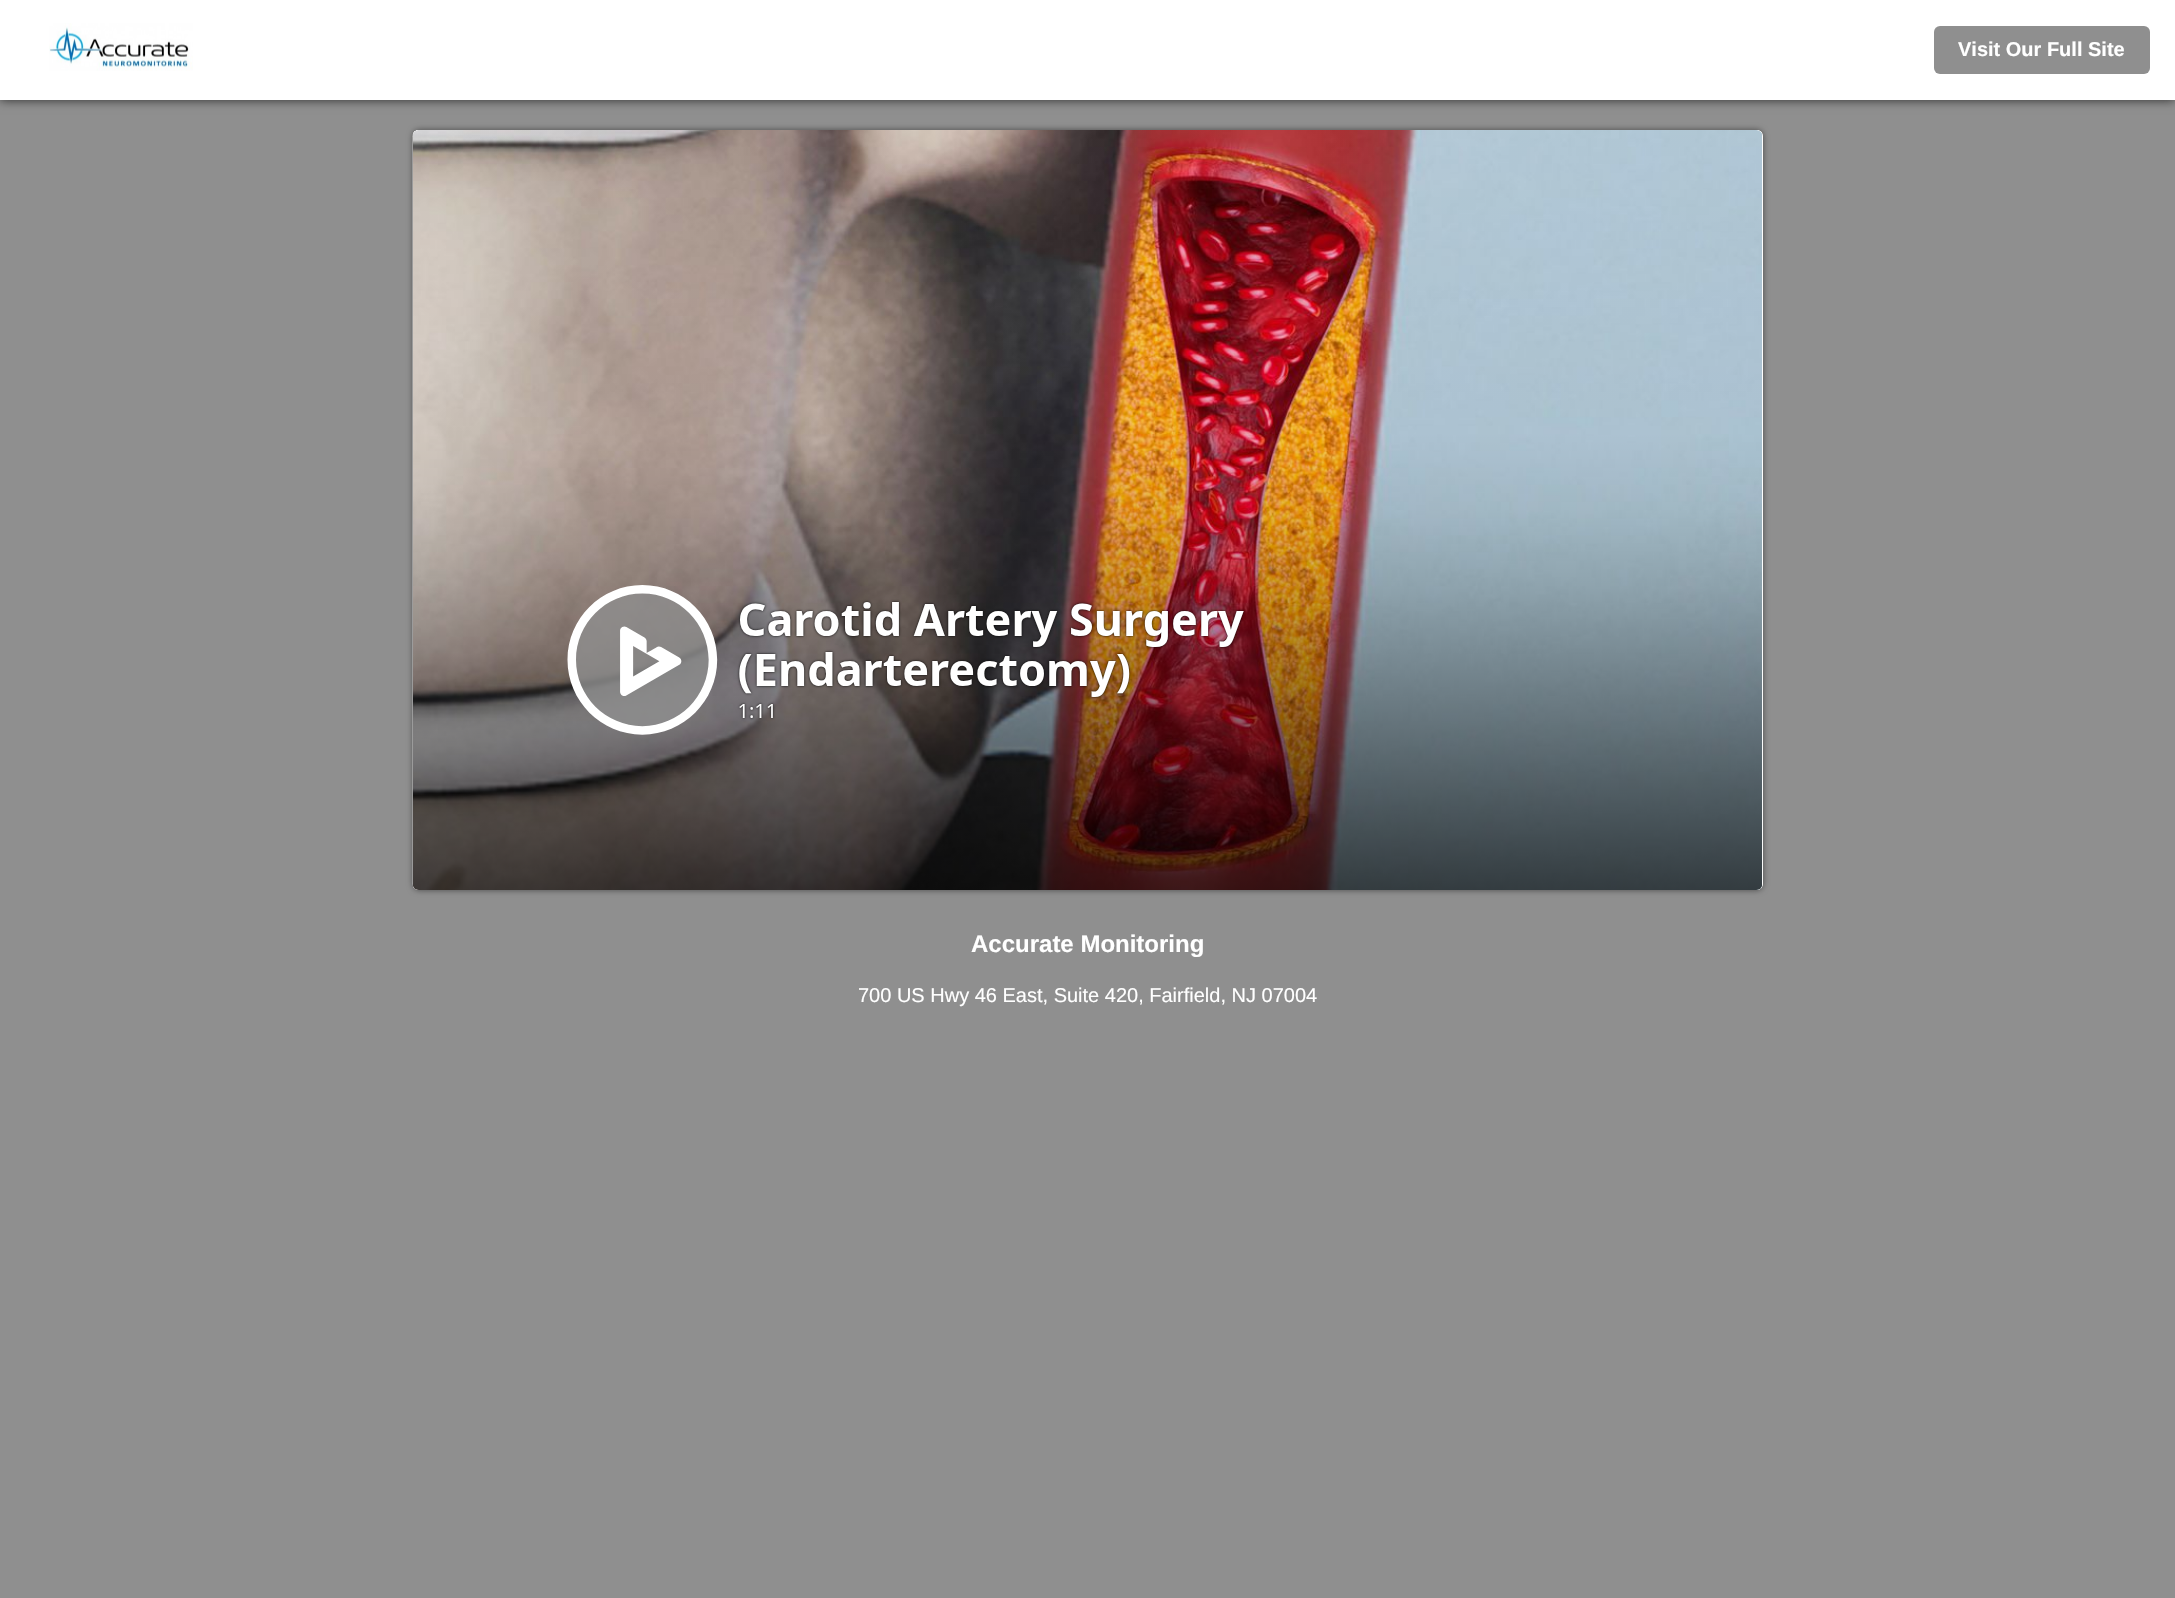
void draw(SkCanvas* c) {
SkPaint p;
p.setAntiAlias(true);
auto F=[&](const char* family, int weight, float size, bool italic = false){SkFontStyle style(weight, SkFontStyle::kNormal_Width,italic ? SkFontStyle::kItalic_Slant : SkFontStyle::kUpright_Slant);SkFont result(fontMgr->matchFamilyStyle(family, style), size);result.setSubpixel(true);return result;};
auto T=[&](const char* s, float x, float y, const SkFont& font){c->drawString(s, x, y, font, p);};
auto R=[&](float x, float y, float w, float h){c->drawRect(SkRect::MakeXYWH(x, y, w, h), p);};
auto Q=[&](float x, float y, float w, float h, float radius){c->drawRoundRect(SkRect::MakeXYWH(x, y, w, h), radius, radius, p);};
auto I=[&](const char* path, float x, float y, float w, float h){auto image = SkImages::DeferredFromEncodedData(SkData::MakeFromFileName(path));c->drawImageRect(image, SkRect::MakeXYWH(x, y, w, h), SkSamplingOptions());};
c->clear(0xff8f8f8f);
p.setColor(0xb3000000);
p.setMaskFilter(SkMaskFilter::MakeBlur(kNormal_SkBlurStyle, 5));
c->drawRect(SkRect::MakeXYWH(0,0,2175,100),p);
p.setMaskFilter(nullptr);
p.setColor(0xffffffff);
R(0,0,2175,100);
I("1.png",49,23,144,48);
p.setColor(0xff8f8f8f);
Q(1934,26,216,48,6);
auto f1 = F("Liberation Sans",700,20);
p.setColor(0xffffffff);
T("Visit Our Full Site",1958,56,f1);
p.setColor(0x80000000);
p.setMaskFilter(SkMaskFilter::MakeBlur(kNormal_SkBlurStyle, 3));
c->drawRoundRect(SkRect::MakeXYWH(413,130,1350,760),6,6,p);
p.setMaskFilter(nullptr);
p.setColor(0xffffffff);
Q(413,130,1350,760,6);
I("2.png",412,130,1351,760);
auto f2 = F("Liberation Sans",700,24);
T("Accurate Monitoring",971,952,f2);
auto f3 = F("Liberation Sans",400,20);
T("700 US Hwy 46 East, Suite 420, Fairfield, NJ 07004",858,1002,f3);
}
